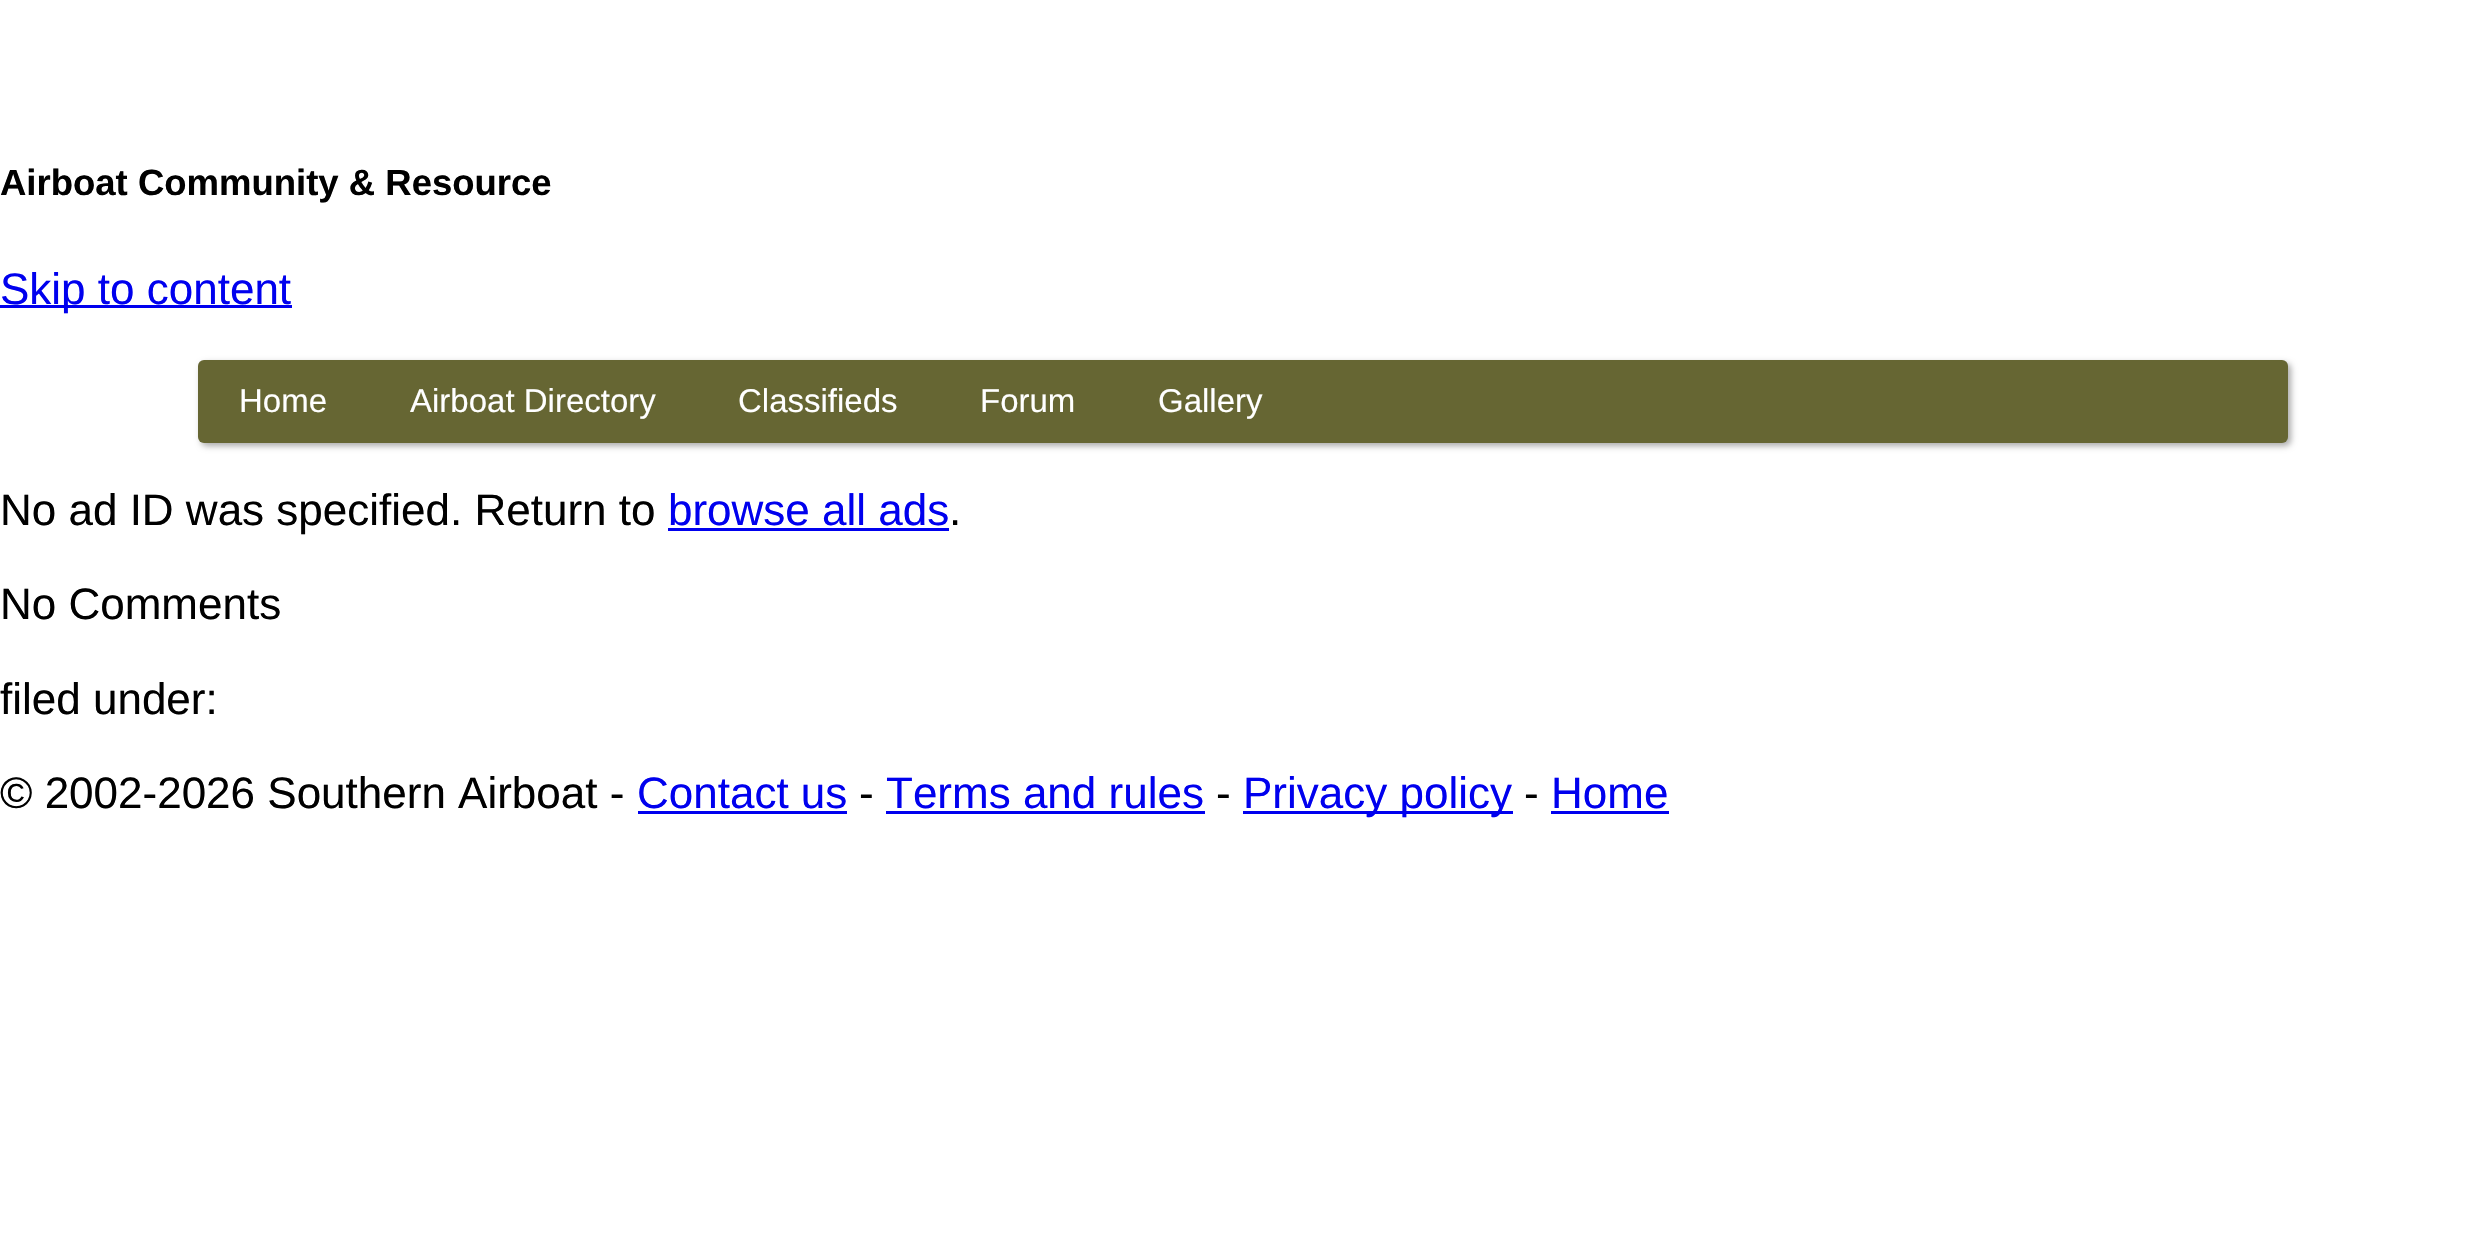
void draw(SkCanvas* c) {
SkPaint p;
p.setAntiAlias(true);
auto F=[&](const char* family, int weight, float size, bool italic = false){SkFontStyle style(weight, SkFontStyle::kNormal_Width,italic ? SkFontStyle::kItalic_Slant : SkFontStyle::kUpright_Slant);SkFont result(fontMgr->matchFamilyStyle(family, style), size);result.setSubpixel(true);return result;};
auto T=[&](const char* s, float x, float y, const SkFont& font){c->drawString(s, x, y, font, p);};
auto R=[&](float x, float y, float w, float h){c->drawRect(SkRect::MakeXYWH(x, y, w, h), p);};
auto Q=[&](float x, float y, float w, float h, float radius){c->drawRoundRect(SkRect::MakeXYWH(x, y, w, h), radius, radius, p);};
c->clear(0xffffffff);
auto f1 = F("Liberation Sans",700,36.5);
p.setColor(0xff000000);
T("Airboat Community & Resource",0,195,f1);
p.setColor(0xff0000ee);
R(0,305,292,3);
auto f2 = F("Liberation Sans",400,44);
T("Skip to content",0,304,f2);
p.setColor(0xffaaaaaa);
p.setMaskFilter(SkMaskFilter::MakeBlur(kNormal_SkBlurStyle, 3));
c->drawRoundRect(SkRect::MakeXYWH(201,363,2090,83),6,6,p);
p.setMaskFilter(nullptr);
p.setColor(0xff666633);
Q(198,360,2090,83,6);
auto f3 = F("Liberation Sans",400,33);
p.setColor(0xffffffff);
T("Home",239,412,f3);
T("Airboat Directory",410,412,f3);
T("Classifieds",738,412,f3);
T("Forum",980,412,f3);
T("Gallery",1158,412,f3);
p.setColor(0xff000000);
T("No ad ID was specified. Return to",0,525,f2);
p.setColor(0xff0000ee);
T("browse all ads",668,525,f2);
R(668,528,281,3);
p.setColor(0xff000000);
T(".",949,525,f2);
T("No Comments",0,619,f2);
T("filed under:",0,714,f2);
T("© 2002-2026 Southern Airboat -",0,808,f2);
p.setColor(0xff0000ee);
T("Contact us",637,808,f2);
R(638,811,209,3);
p.setColor(0xff000000);
T("-",859,808,f2);
p.setColor(0xff0000ee);
T("Terms and rules",886,808,f2);
R(886,811,319,3);
p.setColor(0xff000000);
T("-",1216,808,f2);
p.setColor(0xff0000ee);
R(1243,811,270,3);
T("Privacy policy",1243,808,f2);
p.setColor(0xff000000);
T("-",1524,808,f2);
p.setColor(0xff0000ee);
T("Home",1551,808,f2);
R(1551,811,118,3);
}
